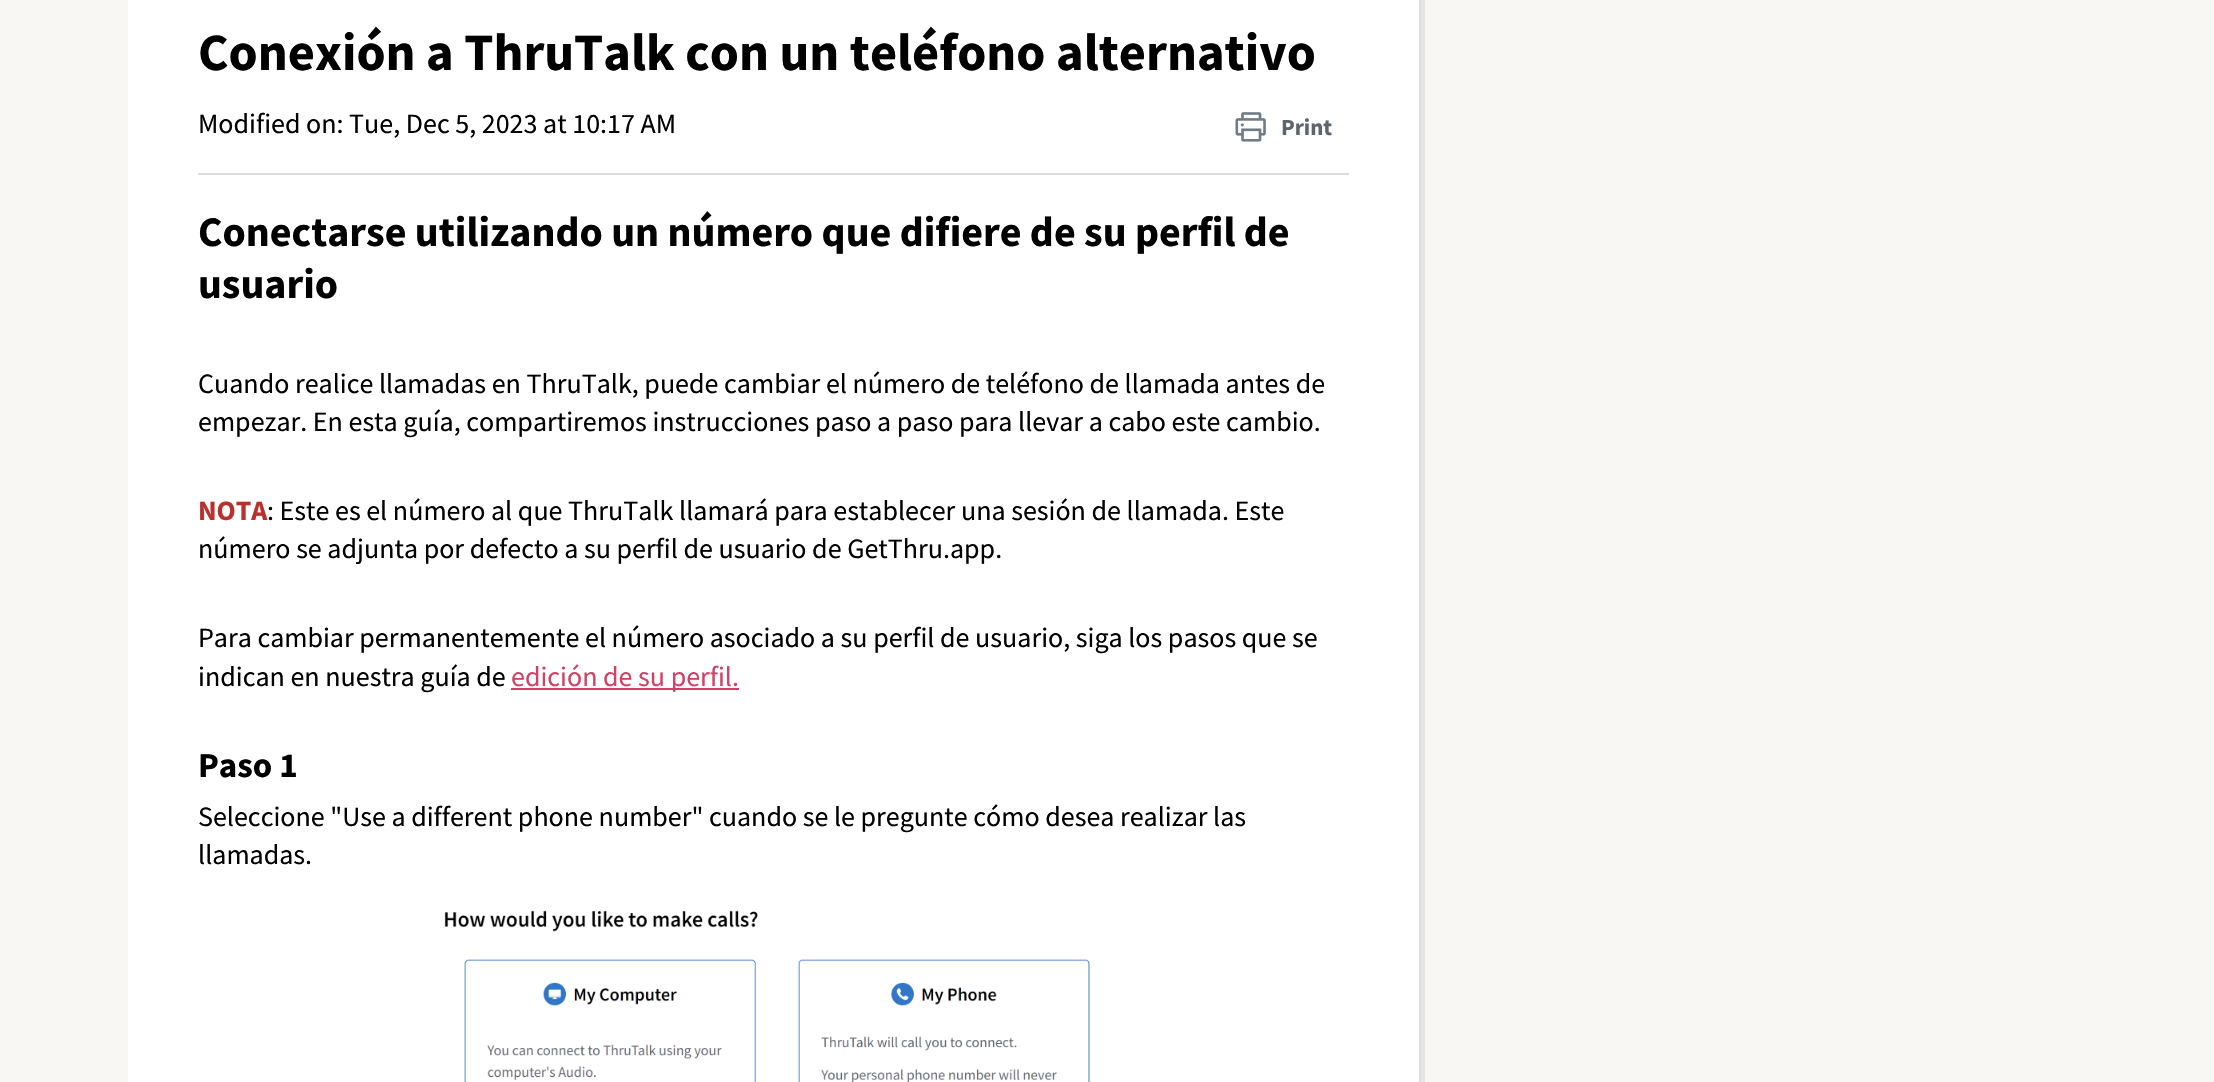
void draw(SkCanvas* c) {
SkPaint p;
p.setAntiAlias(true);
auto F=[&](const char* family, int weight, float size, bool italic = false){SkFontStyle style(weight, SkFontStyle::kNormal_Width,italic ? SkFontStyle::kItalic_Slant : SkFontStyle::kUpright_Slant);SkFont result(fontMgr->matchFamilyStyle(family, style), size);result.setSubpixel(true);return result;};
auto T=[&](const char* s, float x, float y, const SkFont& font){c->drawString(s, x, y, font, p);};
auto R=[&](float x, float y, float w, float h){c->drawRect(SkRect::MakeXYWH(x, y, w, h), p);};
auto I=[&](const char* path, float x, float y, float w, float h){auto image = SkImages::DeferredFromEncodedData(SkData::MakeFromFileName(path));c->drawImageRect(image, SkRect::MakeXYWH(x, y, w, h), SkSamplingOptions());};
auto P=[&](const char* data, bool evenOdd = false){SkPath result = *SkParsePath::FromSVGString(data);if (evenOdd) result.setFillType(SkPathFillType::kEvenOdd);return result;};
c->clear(0xfff9f7f4);
p.setColor(0xffe5e5e5);
c->drawPath(P("M132 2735c2 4 6 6 10 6h1283v-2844h-4v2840h-1283c-2 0-4-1-6-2z"),p);
p.setColor(0xffffffff);
R(128,0,1291,1082);
p.setColor(0xffdadfe3);
R(1419,0,2,1082);
auto f1 = F("Source Sans Pro",700,52.5);
p.setColor(0xff000000);
T("Conexión a ThruTalk con un teléfono alternativo",198,70,f1);
I("1.png",1235,112,31,30);
auto f2 = F("Source Sans Pro",700,23);
p.setColor(0xff5d646a);
T("Print",1281,135,f2);
auto f3 = F("Source Sans Pro",400,28);
p.setColor(0xff000000);
T("Modified on: Tue, Dec 5, 2023 at 10:17 AM",198,133,f3);
p.setColor(0xffdcdcdc);
R(198,173,1151,2);
auto f4 = F("Source Sans Pro",700,42);
p.setColor(0xff000000);
T("Conectarse utilizando un número que difiere de su perfil de",198,246,f4);
T("usuario",198,298,f4);
T("Cuando realice llamadas en ThruTalk, puede cambiar el número de teléfono de llamada antes de",198,393,f3);
T("empezar. En esta guía, compartiremos instrucciones paso a paso para llevar a cabo este cambio.",198,431,f3);
auto f5 = F("Source Sans Pro",700,28);
p.setColor(0xffb8312f);
T("NOTA",198,520,f5);
p.setColor(0xff000000);
T(": Este es el número al que ThruTalk llamará para establecer una sesión de llamada. Este",267,520,f3);
T("número se adjunta por defecto a su perfil de usuario de GetThru.app.",198,558,f3);
T("Para cambiar permanentemente el número asociado a su perfil de usuario, siga los pasos que se",198,647,f3);
T("indican en nuestra guía de",198,686,f3);
p.setColor(0xffd14164);
R(511,688,228,2);
T("edición de su perfil.",511,686,f3);
auto f6 = F("Source Sans Pro",700,35);
p.setColor(0xff000000);
T("Paso 1",198,777,f6);
T("Seleccione \"Use a different phone number\" cuando se le pregunte cómo desea realizar las",198,826,f3);
T("llamadas.",198,864,f3);
I("2.png",444,910,646,172);
}
